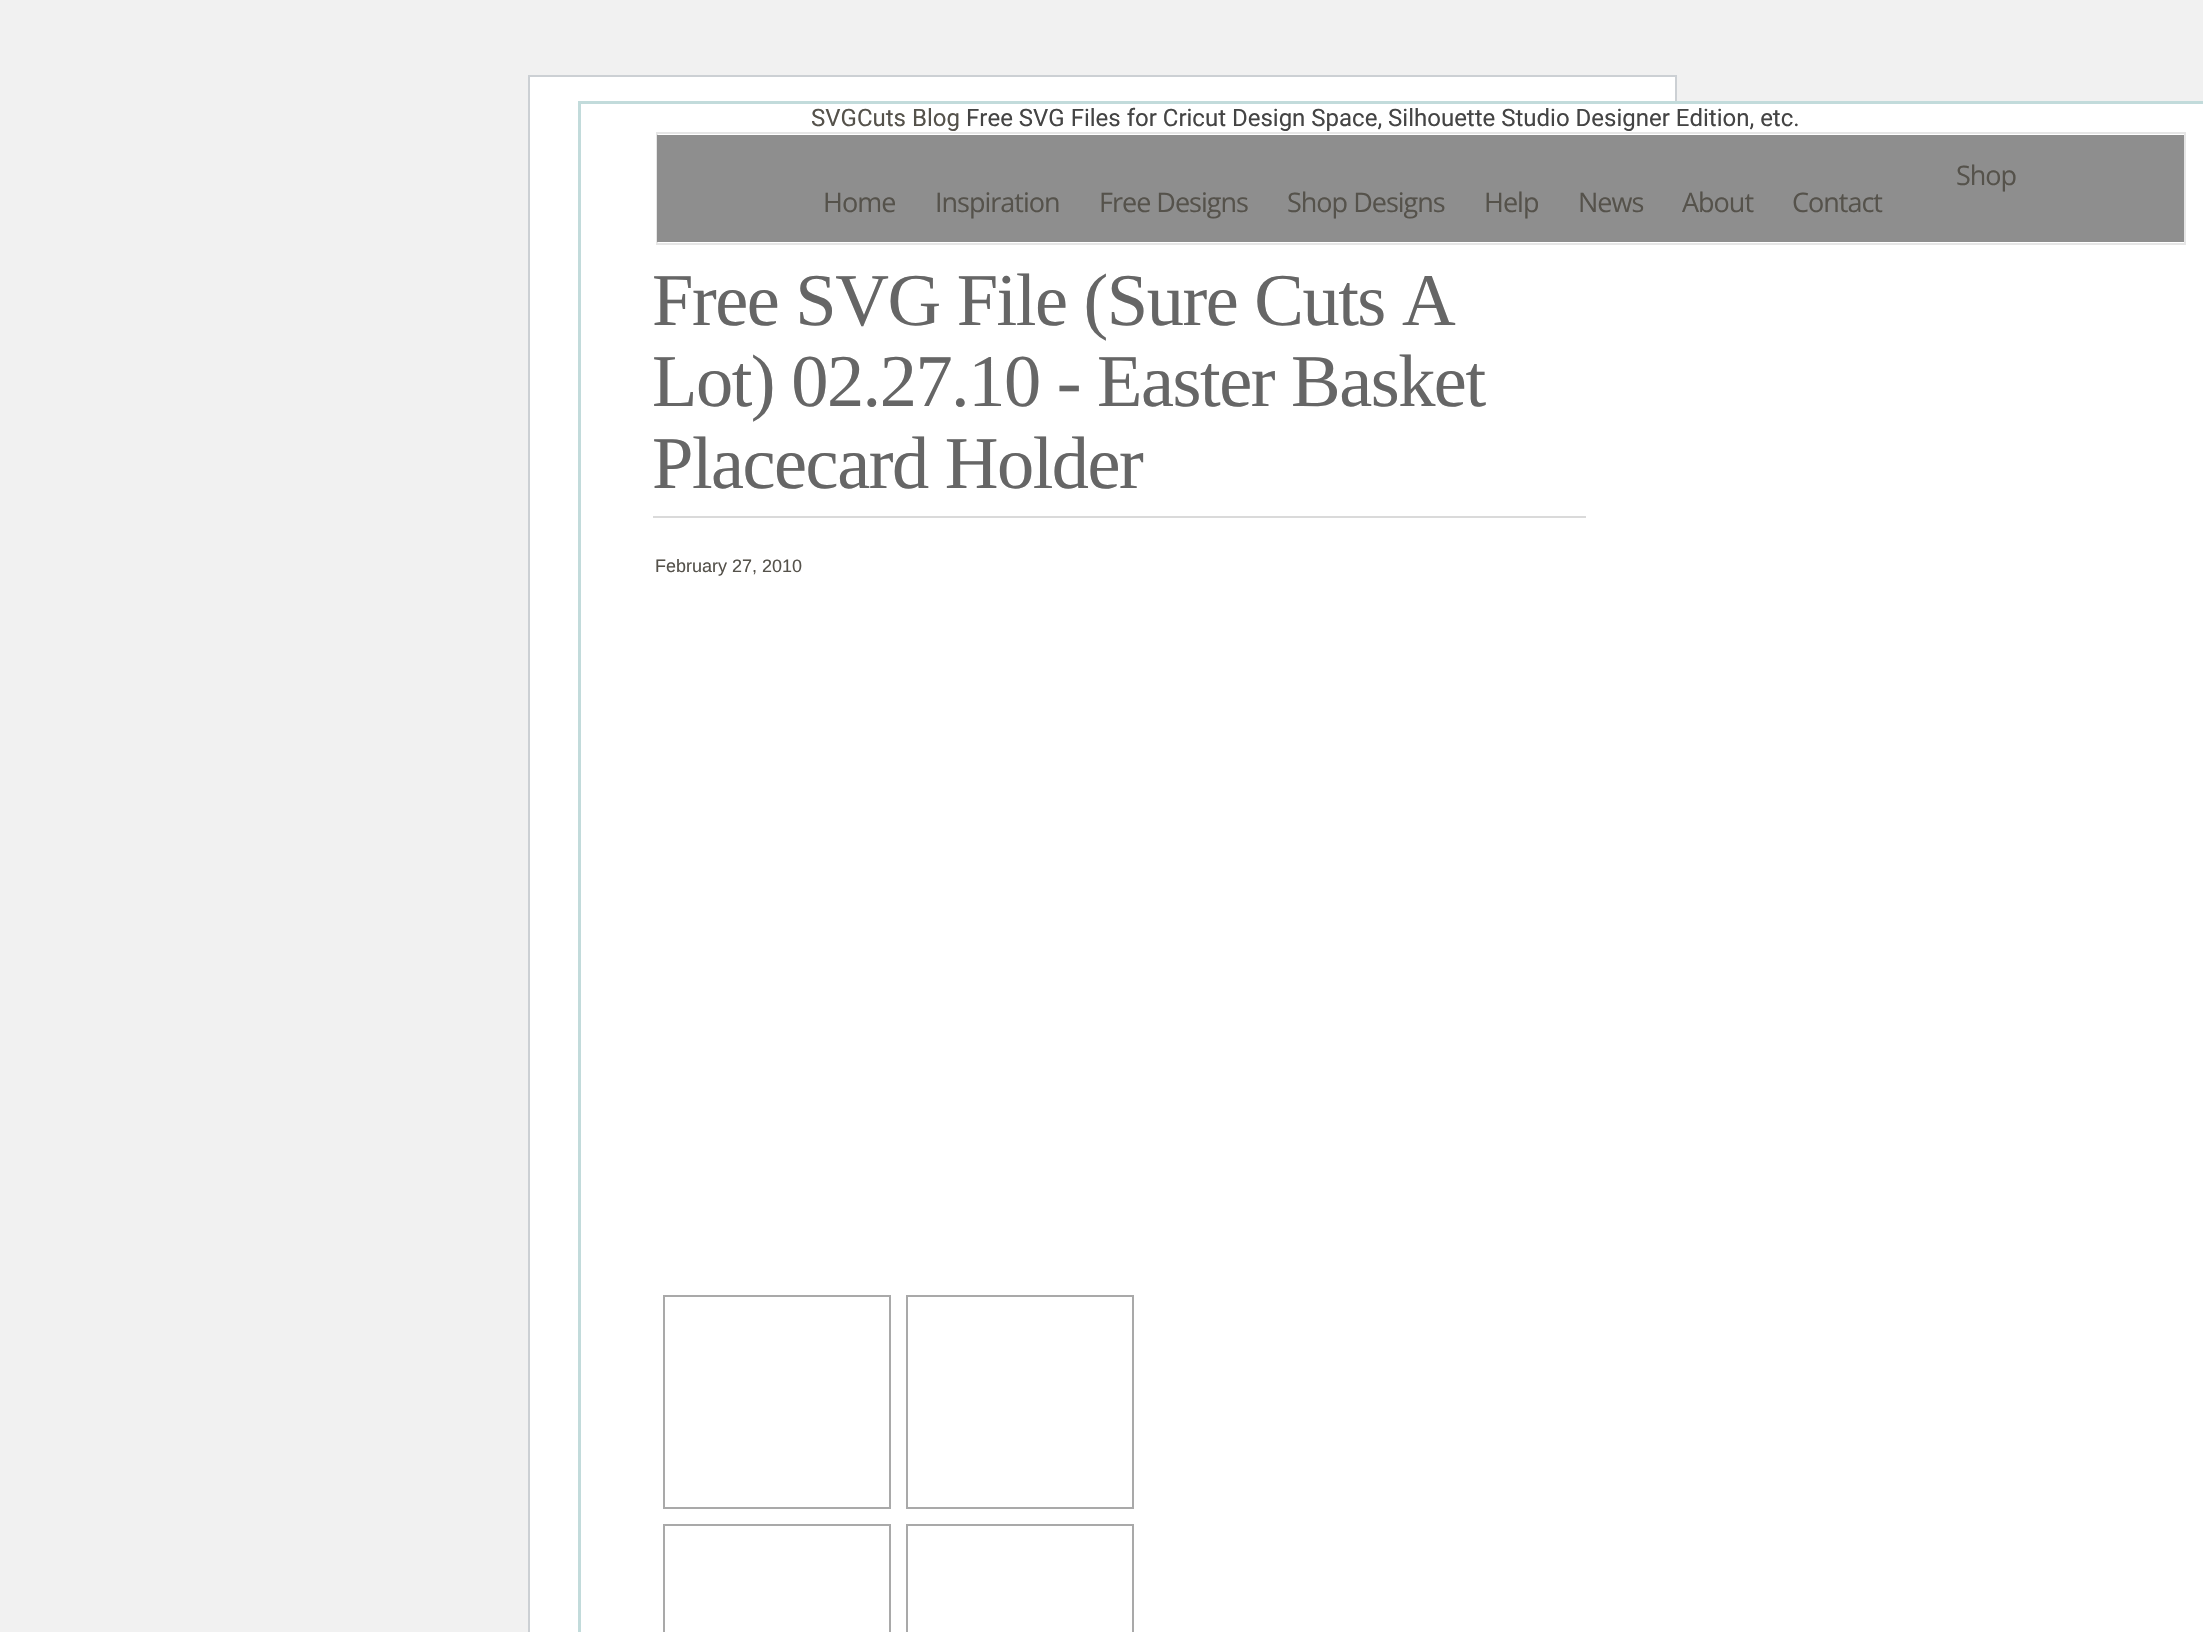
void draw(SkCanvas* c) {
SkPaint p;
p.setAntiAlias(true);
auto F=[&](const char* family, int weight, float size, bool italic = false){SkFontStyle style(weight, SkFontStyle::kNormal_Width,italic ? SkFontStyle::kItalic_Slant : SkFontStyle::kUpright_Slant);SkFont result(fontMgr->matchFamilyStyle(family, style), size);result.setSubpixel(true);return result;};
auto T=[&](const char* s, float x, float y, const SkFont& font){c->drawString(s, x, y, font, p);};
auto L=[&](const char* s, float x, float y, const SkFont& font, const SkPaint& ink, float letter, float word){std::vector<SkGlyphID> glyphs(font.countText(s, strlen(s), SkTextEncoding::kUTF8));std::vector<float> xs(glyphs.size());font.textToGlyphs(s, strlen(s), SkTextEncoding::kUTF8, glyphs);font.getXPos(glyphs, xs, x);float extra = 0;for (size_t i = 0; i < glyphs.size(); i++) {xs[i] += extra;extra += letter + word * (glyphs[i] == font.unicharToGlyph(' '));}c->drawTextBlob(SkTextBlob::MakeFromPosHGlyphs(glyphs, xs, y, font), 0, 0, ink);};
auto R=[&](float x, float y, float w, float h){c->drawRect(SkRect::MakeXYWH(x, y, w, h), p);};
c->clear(0xfff1f1f1);
p.setColor(0xffffffff);
c->drawRect(SkRect::MakeXYWH(529,76,1147,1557),p);
p.setStroke(true);
p.setStrokeWidth(2);
p.setColor(0xffccd0d4);
c->drawRect(SkRect::MakeXYWH(529,76,1147,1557),p);
p.setStroke(false);
p.setColor(0xffffffff);
R(1675,104,528,1528);
p.setStroke(true);
p.setStrokeWidth(3);
p.setColor(0xffc2dbdb);
c->drawRect(SkRect::MakeXYWH(579.5,102.5,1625,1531),p);
auto f1 = F("Roboto",400,24);
p.setStroke(false);
p.setColor(0xff55524b);
T("SVGCuts Blog",811,126,f1);
p.setColor(0xff444444);
T("Free SVG Files for Cricut Design Space, Silhouette Studio Designer Edition, etc.",966,126,f1);
p.setStroke(true);
p.setStrokeWidth(2);
p.setColor(0xffe6e6e6);
c->drawRect(SkRect::MakeXYWH(657,133,1528,111),p);
p.setStroke(false);
p.setColor(0xff8e8e8e);
R(657,135,1527,107);
auto f2 = F("Open Sans",400,27);
p.setColor(0xff55524b);
L("Shop",1956,185,f2,p,-1,0);
L("Home",823,212,f2,p,-1,0);
L("Inspiration",935,212,f2,p,-1,0);
L("Free Designs",1099,212,f2,p,-1,0);
L("Shop Designs",1287,212,f2,p,-1,0);
L("Help",1484,212,f2,p,-1,0);
L("News",1578,212,f2,p,-1,0);
L("About",1682,212,f2,p,-1,0);
L("Contact",1792,212,f2,p,-1,0);
p.setColor(0xffdadada);
R(653,516,933,2);
auto f3 = F("Liberation Serif",400,74.4);
p.setColor(0xff666666);
L("Free SVG File (Sure Cuts A",652,325,f3,p,-1.5,0);
L("Lot) 02.27.10 - Easter Basket",652,406,f3,p,-1.5,0);
L("Placecard Holder",652,488,f3,p,-1.5,0);
auto f4 = F("Liberation Sans",400,18);
p.setColor(0xff55524b);
T("February 27, 2010",655,572,f4);
p.setStroke(true);
p.setColor(0xffa9a9a9);
c->drawRect(SkRect::MakeXYWH(664,1296,226,212),p);
c->drawRect(SkRect::MakeXYWH(907,1296,226,212),p);
c->drawRect(SkRect::MakeXYWH(664,1525,226,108),p);
c->drawRect(SkRect::MakeXYWH(907,1525,226,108),p);
}
